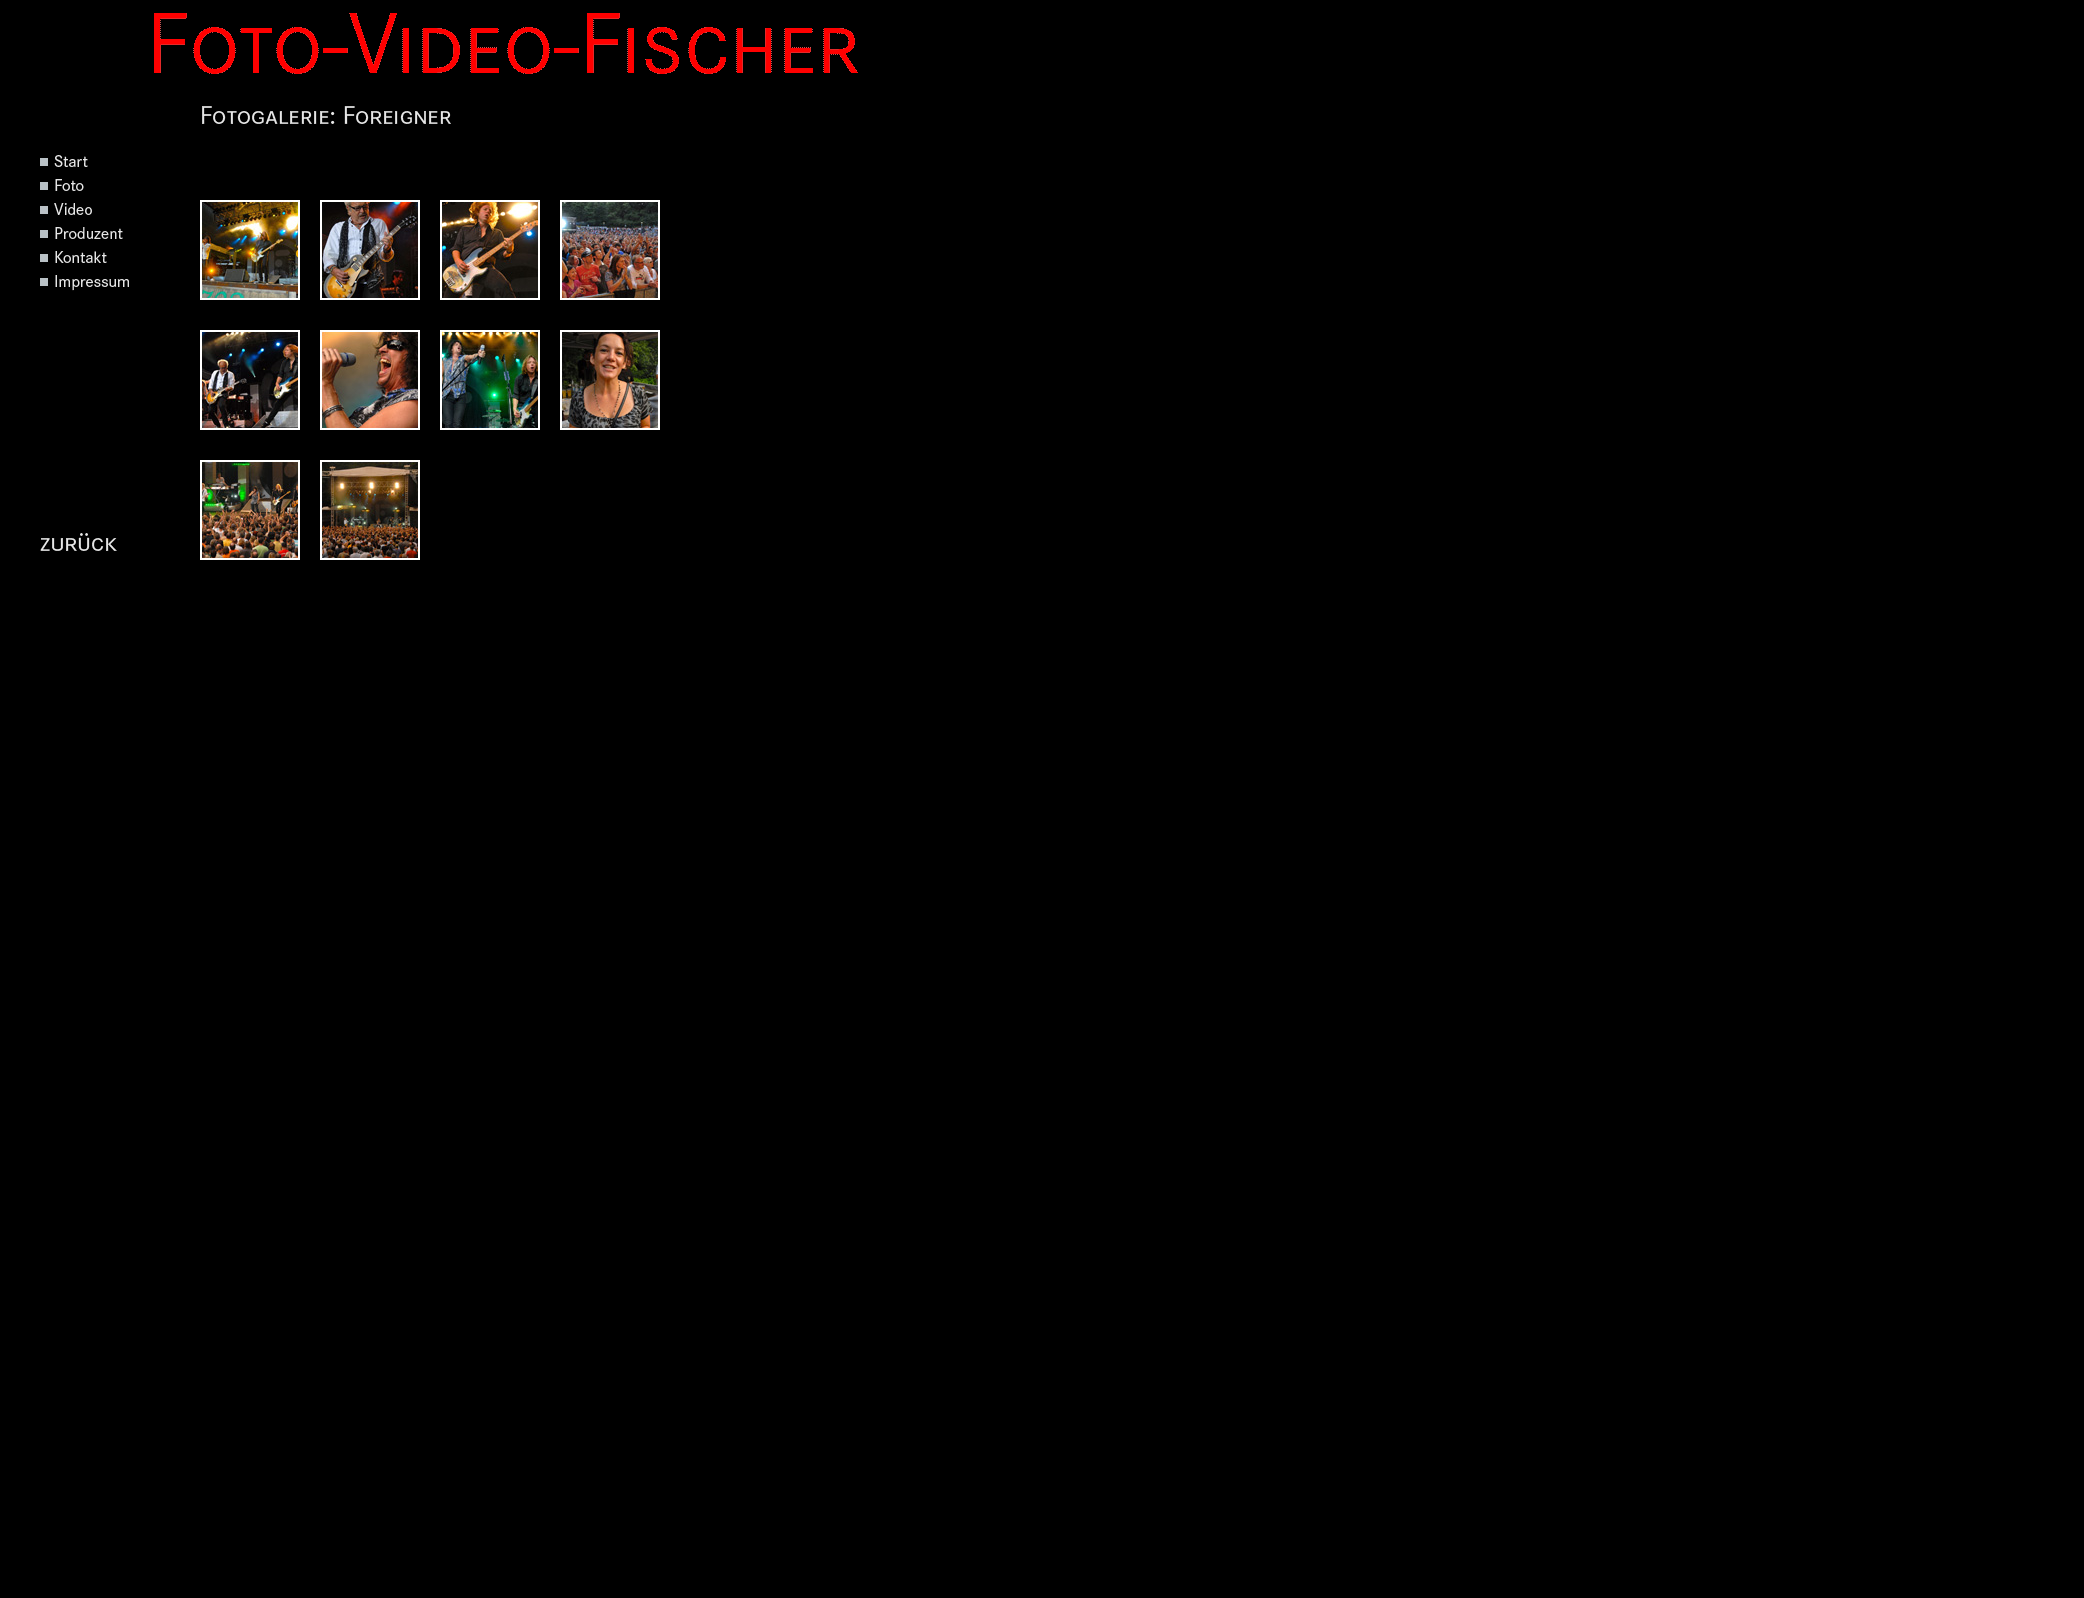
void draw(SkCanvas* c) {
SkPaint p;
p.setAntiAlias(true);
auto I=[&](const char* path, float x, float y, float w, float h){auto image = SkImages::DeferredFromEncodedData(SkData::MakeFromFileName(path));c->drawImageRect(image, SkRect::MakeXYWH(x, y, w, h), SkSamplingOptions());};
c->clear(0xff000000);
I("1.png",154,13,704,61);
I("2.png",202,106,249,18);
I("3.png",40,155,48,12);
I("4.png",40,179,44,12);
I("5.png",40,203,52,12);
I("6.png",40,227,83,12);
I("7.png",40,251,67,12);
I("8.png",40,275,89,16);
I("9.png",40,533,77,18);
I("10.png",200,200,100,100);
I("11.png",320,200,100,100);
I("12.png",440,200,100,100);
I("13.png",560,200,100,100);
I("14.png",200,330,100,100);
I("15.png",320,330,100,100);
I("16.png",440,330,100,100);
I("17.png",560,330,100,100);
I("18.png",200,460,100,100);
I("19.png",320,460,100,100);
}
